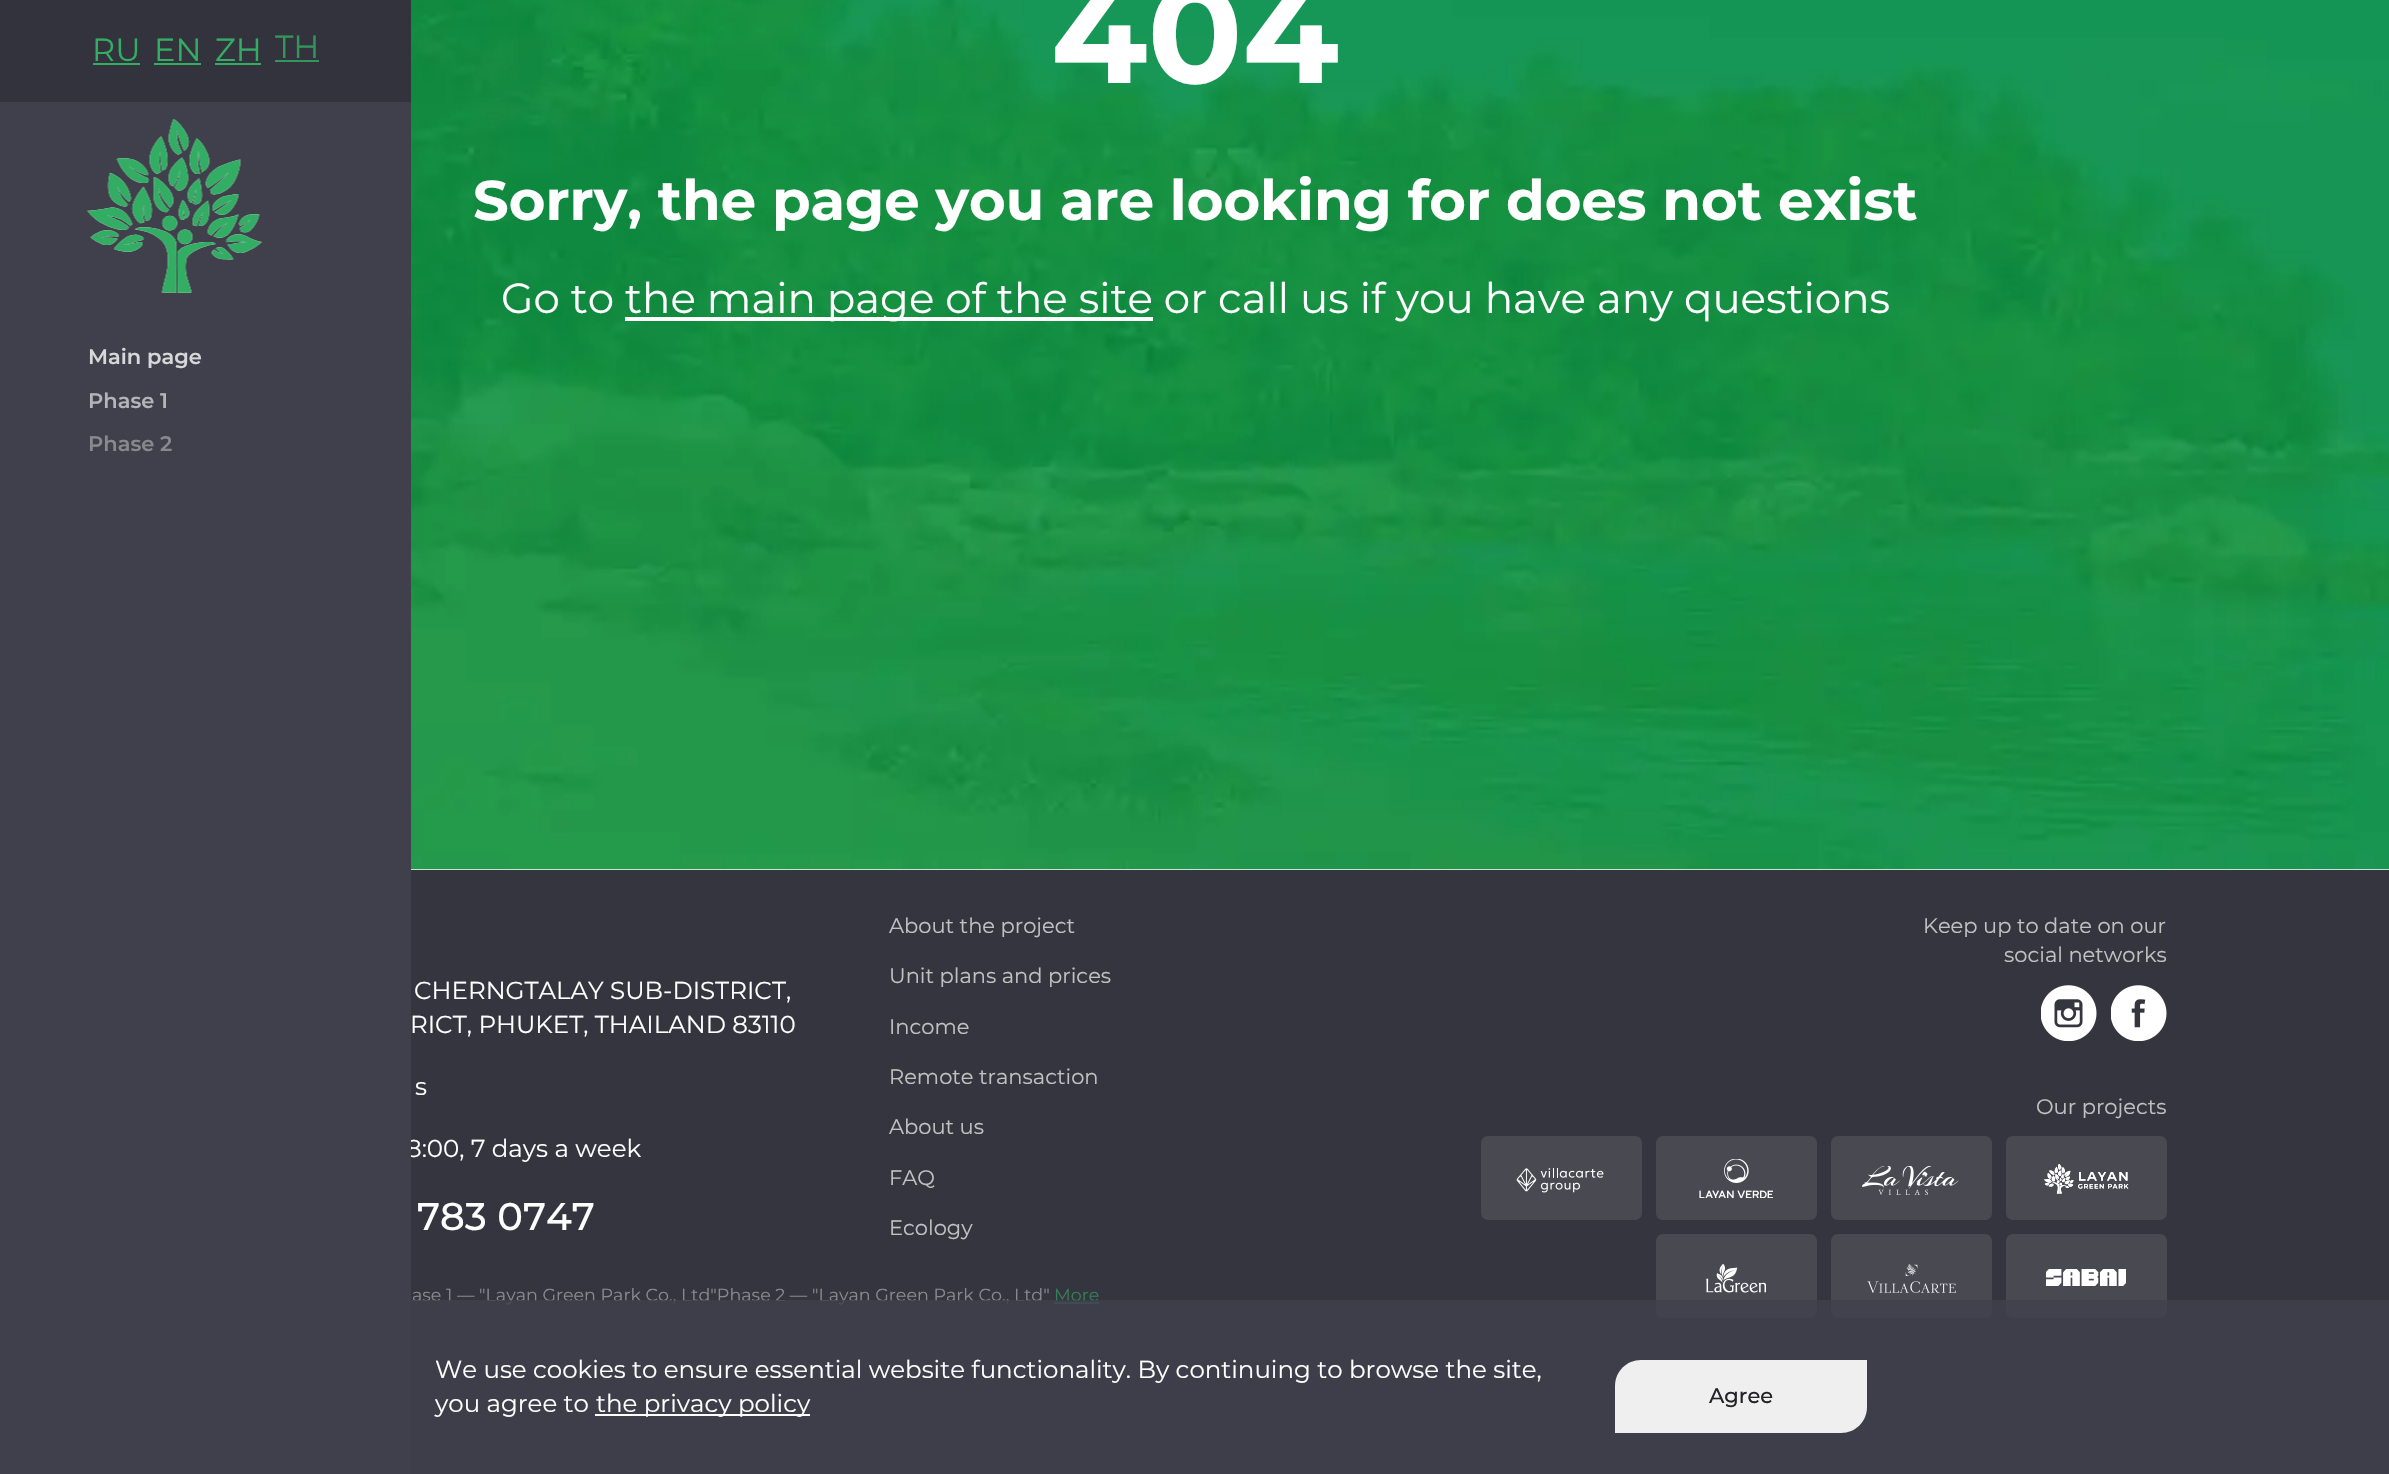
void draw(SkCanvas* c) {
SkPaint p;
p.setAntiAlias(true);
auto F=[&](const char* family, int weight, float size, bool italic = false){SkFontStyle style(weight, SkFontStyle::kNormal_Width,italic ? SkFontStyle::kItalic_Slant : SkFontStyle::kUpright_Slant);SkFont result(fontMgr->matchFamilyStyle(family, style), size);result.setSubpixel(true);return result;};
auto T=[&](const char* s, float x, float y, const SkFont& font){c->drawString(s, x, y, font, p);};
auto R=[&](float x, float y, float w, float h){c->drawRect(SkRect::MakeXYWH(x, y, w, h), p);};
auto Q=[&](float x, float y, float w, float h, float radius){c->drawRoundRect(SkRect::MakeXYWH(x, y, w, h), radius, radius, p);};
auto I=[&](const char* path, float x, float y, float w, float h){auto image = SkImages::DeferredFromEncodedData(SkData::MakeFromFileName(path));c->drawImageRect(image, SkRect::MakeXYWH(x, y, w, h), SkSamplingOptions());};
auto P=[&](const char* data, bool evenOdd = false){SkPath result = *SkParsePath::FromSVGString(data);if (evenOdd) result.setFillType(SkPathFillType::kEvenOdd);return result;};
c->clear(0xffffffff);
p.setColor(0xff35353f);
R(411,870,1978,604);
auto f1 = F("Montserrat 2",100,24.5);
p.setColor(0xffffffff);
T("8:00, 7 days a week",406,1157,f1);
p.setColor(0xff40404c);
R(0,102,411,1372);
p.setColor(0xff33333d);
R(0,0,411,102);
auto f2 = F("Montserrat 2",100,32);
p.setColor(0xff34ad64);
T("RU",92,61,f2);
R(93,63,47,2);
T("EN",154,61,f2);
R(154,63,47,2);
T("ZH",215,61,f2);
p.setColor(0xff34ab63);
R(215,63,46,2);
p.setColor(0xff34945c);
T("TH",275,58,f2);
R(275,60,44,2);
I("1.png",87,119,176,174);
auto f3 = F("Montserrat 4",100,21);
p.setColor(0xffd7d7da);
T("Main page",88,364,f3);
p.setColor(0xffb5b5b9);
T("Phase 1",88,408,f3);
p.setColor(0xff89898d);
T("Phase 2",88,451,f3);
I("2.png",411,0,1978,870);
auto f4 = F("Montserrat",100,140);
p.setColor(0xffffffff);
T("404",1051,83,f4);
auto f5 = F("Montserrat",100,56);
T("Sorry, the page you are looking for does not exist",473,220,f5);
auto f6 = F("Montserrat 2",100,42);
T("Go to",501,313,f6);
R(625,317,528,4);
T("the main page of the site or call us if you have any questions",625,313,f6);
T("CHERNGTALAY SUB-DISTRICT,",414,999,f1);
T("RICT, PHUKET, THAILAND 83110",410,1033,f1);
T("s",415,1095,f1);
auto f7 = F("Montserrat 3",100,38.5);
T("783 0747",417,1230,f7);
auto f8 = F("Montserrat 2",100,21);
p.setColor(0xffc1c1c1);
T("About the project",889,933,f8);
T("Unit plans and prices",889,983,f8);
T("Income",889,1034,f8);
T("Remote transaction",889,1084,f8);
T("About us",889,1134,f8);
T("FAQ",889,1185,f8);
T("Ecology",889,1235,f8);
T("Keep up to date on our",1923,933,f8);
T("social networks",2004,962,f8);
I("3.png",2041,985,56,56);
I("4.png",2111,985,56,56);
T("Our projects",2036,1114,f8);
p.setColor(0xff494952);
Q(1481,1136,161,84,7);
I("5.png",1516,1168,88,25);
Q(1656,1136,161,84,7);
I("6.png",1699,1159,74,39);
Q(1831,1136,161,84,7);
I("7.png",1862,1166,97,29);
Q(2006,1136,161,84,7);
I("8.png",2044,1164,85,30);
Q(1656,1234,161,84,7);
I("9.png",1706,1264,60,29);
Q(1831,1234,161,84,7);
I("10.png",1867,1264,89,29);
Q(2006,1234,161,84,7);
I("11.png",2046,1269,80,17);
auto f9 = F("Montserrat 2",100,17.5);
p.setColor(0xff89898d);
T("ase 1 — \"Layan Green Park Co., Ltd\"Phase 2 — \"Layan Green Park Co., Ltd\"",412,1301,f9);
p.setColor(0xff347d55);
T("More",1054,1301,f9);
R(1054,1302,45,2);
p.setColor(0xcc40404c);
R(411,1300,1978,174);
p.setColor(0xffffffff);
T("We use cookies to ensure essential website functionality. By continuing to browse the site,",435,1378,f1);
T("you agree to",435,1412,f1);
R(595,1414,215,2);
T("the privacy policy",596,1412,f1);
p.setColor(0xffefefef);
c->drawPath(P("M1641 1360h226v47c0 14.5-11.5 26-26 26h-226v-47c0-14.5 11.5-26 26-26z"),p);
auto f10 = F("Montserrat 3",100,21);
p.setColor(0xff232326);
T("Agree",1709,1403,f10);
}
